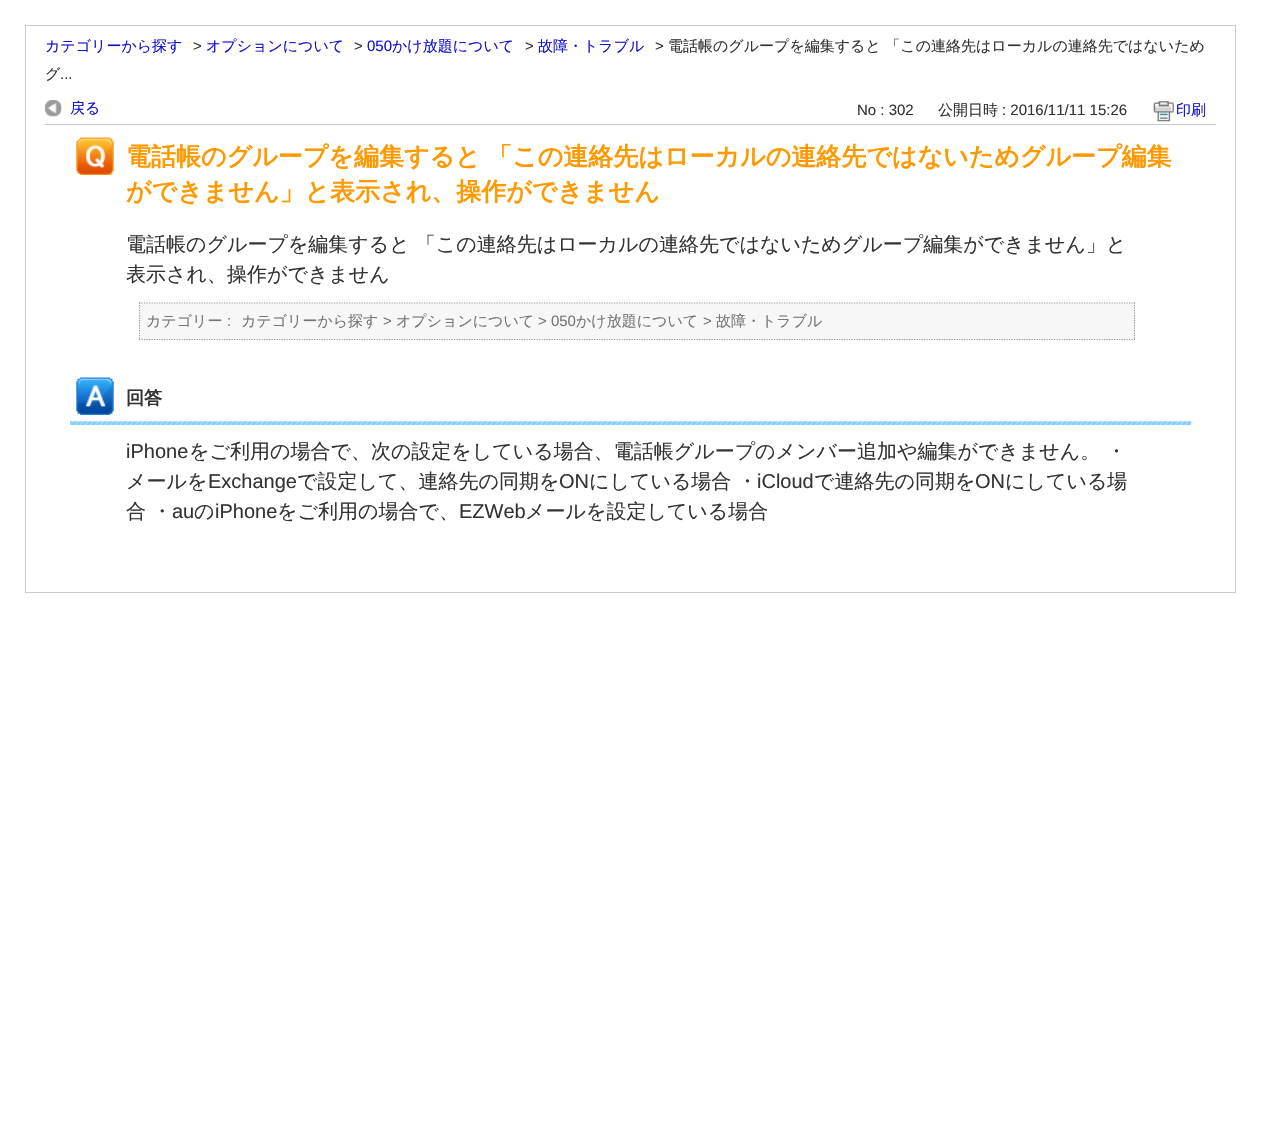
void draw(SkCanvas* c) {
SkPaint p;
p.setAntiAlias(true);
auto F=[&](const char* family, int weight, float size, bool italic = false){SkFontStyle style(weight, SkFontStyle::kNormal_Width,italic ? SkFontStyle::kItalic_Slant : SkFontStyle::kUpright_Slant);SkFont result(fontMgr->matchFamilyStyle(family, style), size);result.setSubpixel(true);return result;};
auto T=[&](const char* s, float x, float y, const SkFont& font){c->drawString(s, x, y, font, p);};
auto L=[&](const char* s, float x, float y, const SkFont& font, const SkPaint& ink, float letter, float word){std::vector<SkGlyphID> glyphs(font.countText(s, strlen(s), SkTextEncoding::kUTF8));std::vector<float> xs(glyphs.size());font.textToGlyphs(s, strlen(s), SkTextEncoding::kUTF8, glyphs);font.getXPos(glyphs, xs, x);float extra = 0;for (size_t i = 0; i < glyphs.size(); i++) {xs[i] += extra;extra += letter + word * (glyphs[i] == font.unicharToGlyph(' '));}c->drawTextBlob(SkTextBlob::MakeFromPosHGlyphs(glyphs, xs, y, font), 0, 0, ink);};
auto R=[&](float x, float y, float w, float h){c->drawRect(SkRect::MakeXYWH(x, y, w, h), p);};
auto I=[&](const char* path, float x, float y, float w, float h){auto image = SkImages::DeferredFromEncodedData(SkData::MakeFromFileName(path));c->drawImageRect(image, SkRect::MakeXYWH(x, y, w, h), SkSamplingOptions());};
auto P=[&](const char* data, bool evenOdd = false){SkPath result = *SkParsePath::FromSVGString(data);if (evenOdd) result.setFillType(SkPathFillType::kEvenOdd);return result;};
c->clear(0xffffffff);
p.setStroke(true);
p.setStrokeWidth(1);
p.setColor(0xffcccccc);
c->drawRect(SkRect::MakeXYWH(25.5,25.5,1210,567),p);
auto f1 = F("WenQuanYi Zen Hei",500,15);
p.setStroke(false);
p.setColor(0xff1111cc);
T("カテゴリーから探す",45,51,f1);
auto f2 = F("Liberation Sans",400,15);
p.setColor(0xff333333);
T(">",193,51,f2);
p.setColor(0xff1111cc);
T("オプションについて",206,51,f1);
p.setColor(0xff333333);
T(">",354,51,f2);
p.setColor(0xff1111cc);
T("050",367,51,f2);
T("かけ放題について",392,51,f1);
p.setColor(0xff333333);
T(">",525,51,f2);
p.setColor(0xff1111cc);
T("故障・トラブル",538,51,f1);
p.setColor(0xff333333);
T(">",655,51,f2);
T("電話帳のグループを編集すると 「この連絡先はローカルの連絡先ではないため",668,51,f1);
T("グ",45,79,f1);
T("...",60,79,f2);
p.setColor(0xffcccccc);
R(45,124,1171,1);
I("1.png",45,100,17,17);
p.setColor(0xff1111cc);
T("戻る",70,113,f1);
p.setColor(0xff333333);
T("No : 302",857,115,f2);
T("公開日時",938,115,f1);
T(": 2016/11/11 15:26",1002,115,f2);
I("2.png",1153,101,21,21);
p.setColor(0xff1111cc);
T("印刷",1176,115,f1);
I("3.png",76,137,38,38);
auto f3 = F("WenQuanYi Zen Hei",700,25);
p.setColor(0xffff9900);
L("電話帳のグループを編集すると 「この連絡先はローカルの連絡先ではないためグループ編集",126,165,f3,p,0,-1);
T("ができません」と表示され、操作ができません",126,200,f3);
auto f4 = F("WenQuanYi Zen Hei",500,20);
p.setColor(0xff333333);
T("電話帳のグループを編集すると 「この連絡先はローカルの連絡先ではないためグループ編集ができません」と",126,251,f4);
T("表示され、操作ができません",126,281,f4);
p.setColor(0xfff7f7f7);
R(139,303,996,37);
p.setStroke(true);
p.setStrokeWidth(1.2);
p.setColor(0xff999999);
p.setPathEffect(SkDashPathEffect::Make({{1.25f,1.25f}}, 0));
c->drawPath(P("M139 303h996"),p);
p.setPathEffect(nullptr);
p.setPathEffect(SkDashPathEffect::Make({{1.25f,1.25f}}, 0));
c->drawPath(P("M1134.5 302.5v37.5"),p);
p.setPathEffect(nullptr);
p.setPathEffect(SkDashPathEffect::Make({{1.25f,1.25f}}, 0));
c->drawPath(P("M139 339.5h996"),p);
p.setPathEffect(nullptr);
p.setPathEffect(SkDashPathEffect::Make({{1.25f,1.25f}}, 0));
c->drawPath(P("M139.5 302.5v37.5"),p);
p.setPathEffect(nullptr);
p.setStroke(false);
p.setColor(0xff767676);
T("カテゴリー",146,326,f1);
T(":",227,326,f2);
T("カテゴリーから探す",241,326,f1);
T(">",383,326,f2);
T("オプションについて",396,326,f1);
T("> 050",538,326,f2);
T("かけ放題について",576,326,f1);
T(">",703,326,f2);
T("故障・トラブル",716,326,f1);
I("4.png",70,421,1122,4);
I("5.png",76,377,38,38);
auto f5 = F("WenQuanYi Zen Hei",700,18);
p.setColor(0xff333333);
T("回答",126,404,f5);
auto f6 = F("Liberation Sans",400,20);
T("iPhone",126,458,f6);
T("をご利用の場合で、次の設定をしている場合、電話帳グループのメンバー追加や編集ができません。 ・",189,458,f4);
T("メールを",126,488,f4);
T("Exchange",208,488,f6);
T("で設定して、連絡先の同期を",297,488,f4);
T("ON",559,488,f6);
T("にしている場合 ・",589,488,f4);
T("iCloud",757,488,f6);
T("で連絡先の同期を",814,488,f4);
T("ON",975,488,f6);
T("にしている場",1005,488,f4);
T("合 ・",126,518,f4);
T("au",172,518,f6);
T("の",194,518,f4);
T("iPhone",215,518,f6);
T("をご利用の場合で、",277,518,f4);
T("EZWeb",459,518,f6);
T("メールを設定している場合",525,518,f4);
}
